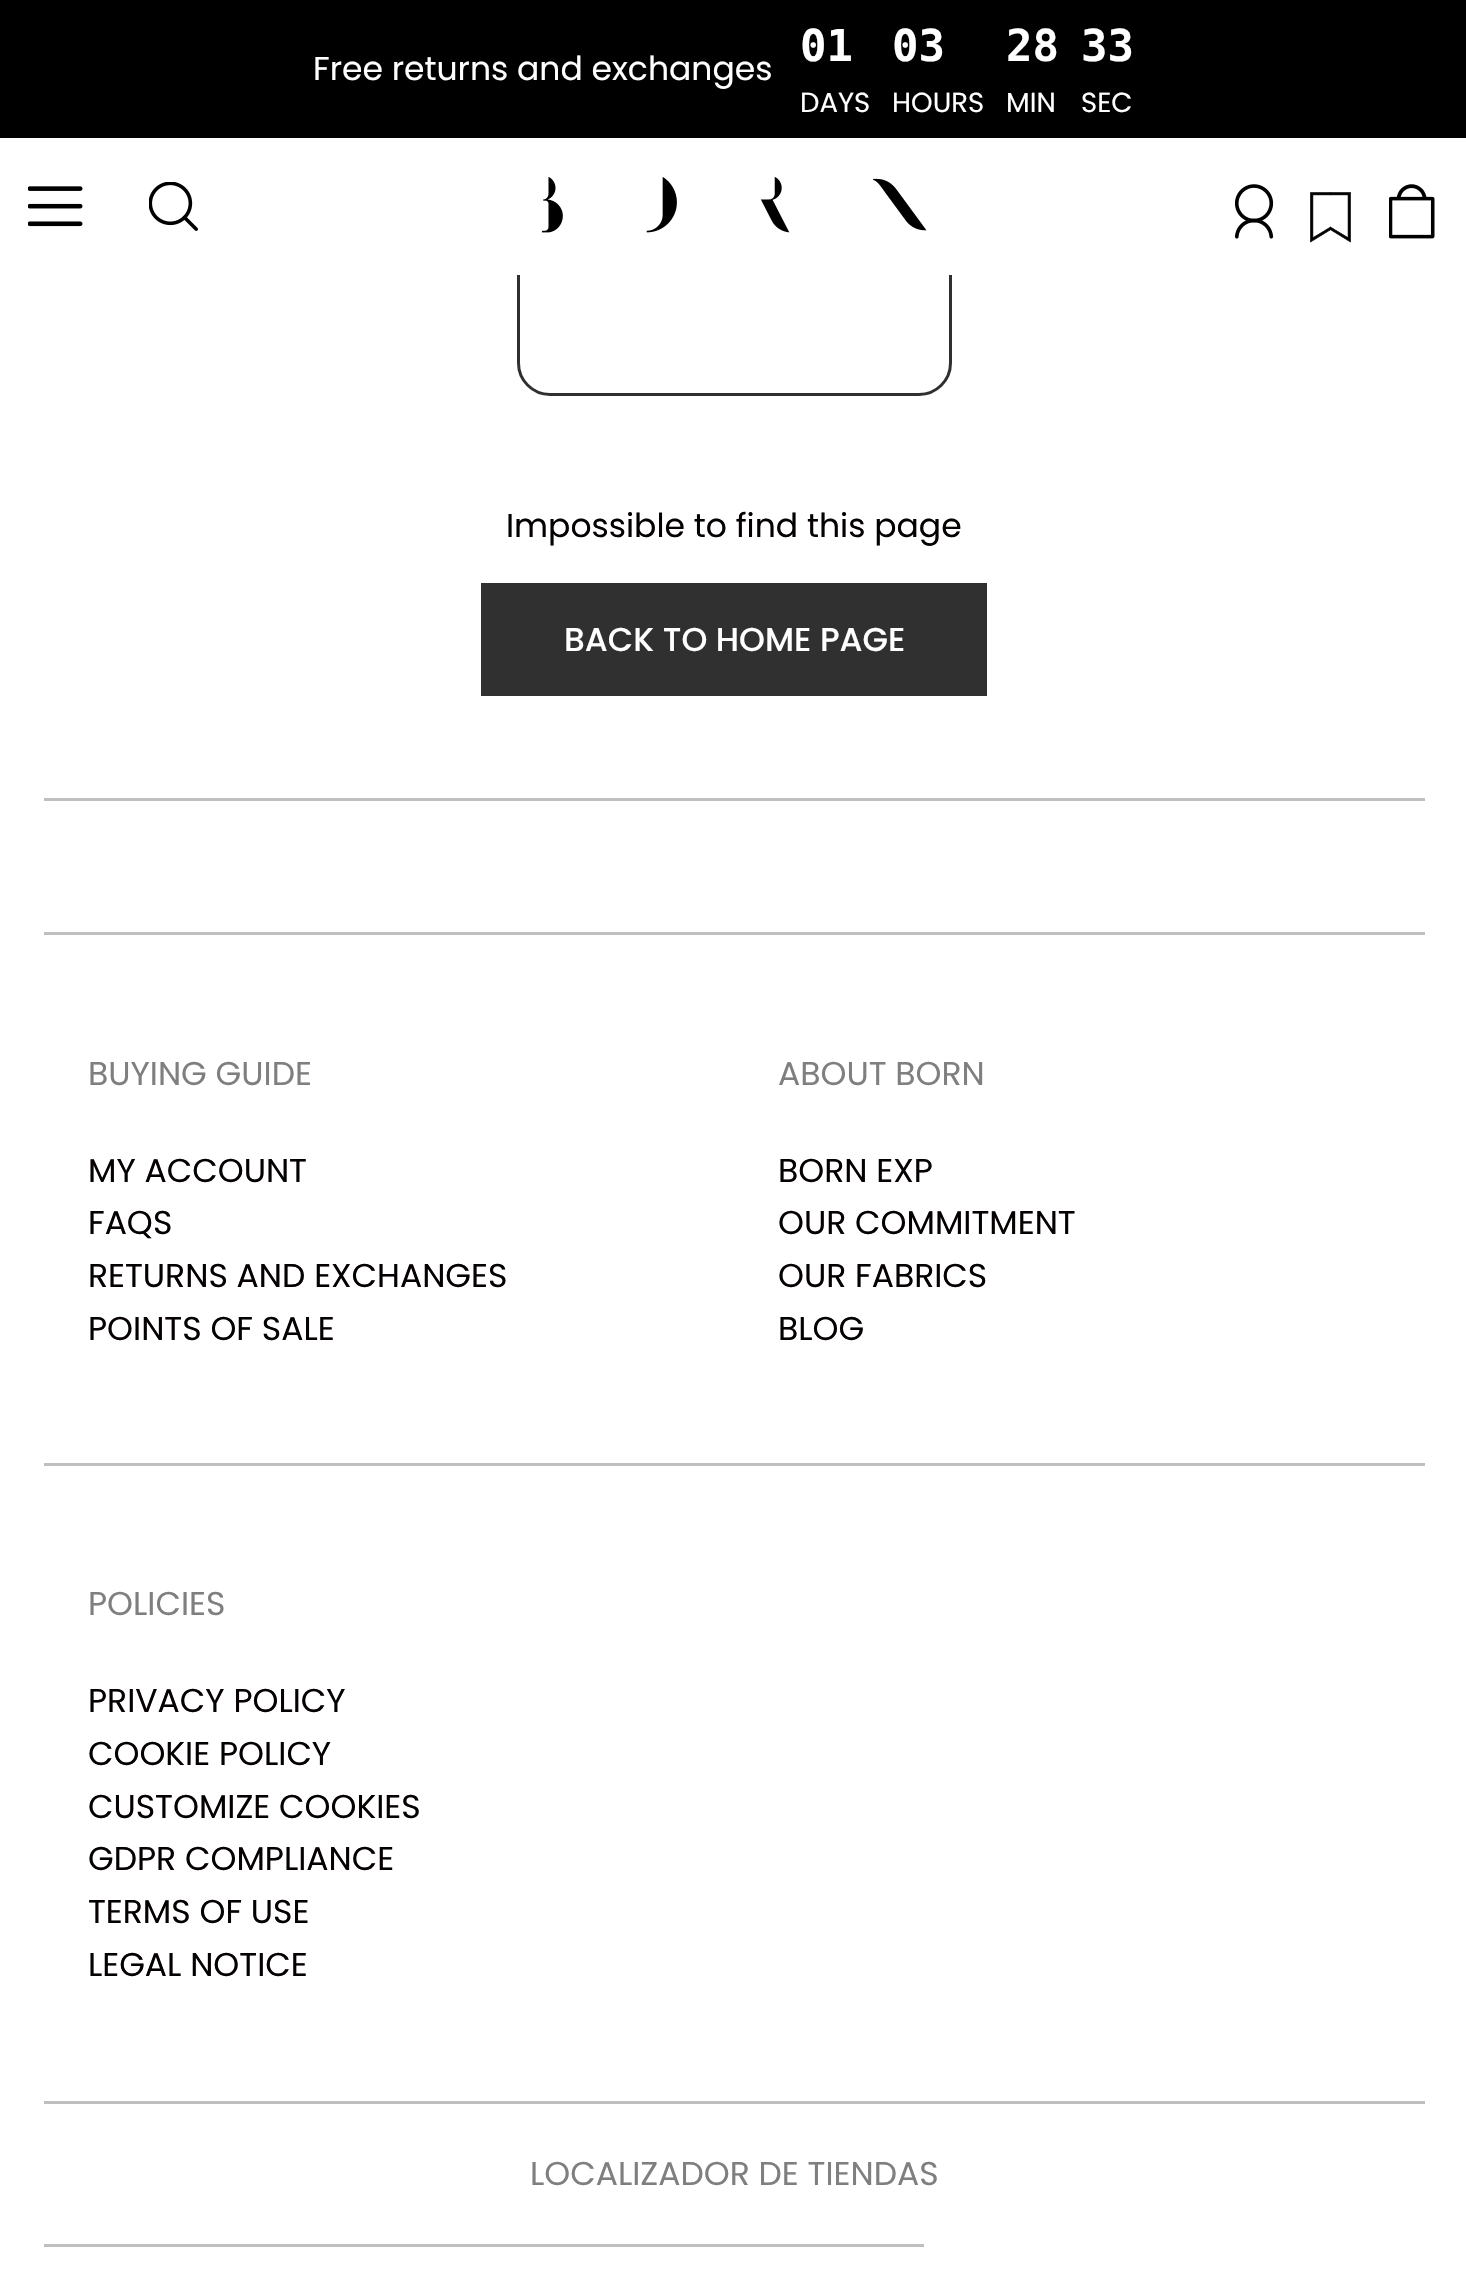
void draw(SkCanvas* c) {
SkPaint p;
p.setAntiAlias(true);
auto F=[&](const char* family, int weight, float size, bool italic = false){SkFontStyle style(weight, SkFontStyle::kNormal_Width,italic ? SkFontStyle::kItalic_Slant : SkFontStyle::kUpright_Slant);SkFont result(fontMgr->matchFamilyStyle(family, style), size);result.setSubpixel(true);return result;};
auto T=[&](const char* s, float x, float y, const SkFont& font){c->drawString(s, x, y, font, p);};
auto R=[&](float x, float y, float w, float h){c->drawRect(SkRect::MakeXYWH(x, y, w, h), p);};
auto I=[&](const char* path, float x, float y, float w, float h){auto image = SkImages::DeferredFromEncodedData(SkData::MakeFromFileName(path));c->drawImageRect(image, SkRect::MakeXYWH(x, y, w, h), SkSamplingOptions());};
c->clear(0xffffffff);
p.setStroke(true);
p.setStrokeWidth(3);
p.setColor(0xff303030);
c->drawRoundRect(SkRect::MakeXYWH(518.5,97.5,432,297),31.5,31.5,p);
p.setStroke(false);
p.setColor(0xffffffff);
R(517,138,435,137);
p.setColor(0xff000000);
R(0,0,1466,138);
auto f1 = F("Poppins",400,33);
p.setColor(0xffffffff);
T("Free returns and exchanges",313,80,f1);
auto f2 = F("DejaVu Sans Mono",700,44);
T("01",800,61,f2);
auto f3 = F("Poppins",400,27.5);
T("DAYS",800,112,f3);
T("03",892,61,f2);
T("HOURS",892,112,f3);
T("28",1006,61,f2);
T("MIN",1006,112,f3);
T("33",1081,61,f2);
T("SEC",1081,112,f3);
I("1.png",28,186,55,41);
I("2.png",149,182,49,49);
I("3.png",542,176,385,57);
I("4.png",1235,184,39,55);
I("5.png",1310,192,41,51);
I("6.png",1389,184,46,55);
p.setColor(0xff050101);
T("Impossible to find this page",506,537,f1);
p.setColor(0xff303030);
R(481,583,506,113);
auto f4 = F("Poppins",500,33);
p.setColor(0xffffffff);
T("BACK TO HOME PAGE",564,651,f4);
p.setColor(0xffbfbfbf);
R(44,798,1381,3);
R(44,932,1381,3);
p.setColor(0xff807f7f);
T("BUYING GUIDE",88,1085,f1);
p.setColor(0xff050101);
T("MY ACCOUNT",88,1182,f1);
T("FAQS",88,1234,f1);
T("RETURNS AND EXCHANGES",88,1287,f1);
T("POINTS OF SALE",88,1340,f1);
p.setColor(0xff807f7f);
T("ABOUT BORN",778,1085,f1);
p.setColor(0xff050101);
T("BORN EXP",778,1182,f1);
T("OUR COMMITMENT",778,1234,f1);
T("OUR FABRICS",778,1287,f1);
T("BLOG",778,1340,f1);
p.setColor(0xffbfbfbf);
R(44,1463,1381,3);
p.setColor(0xff807f7f);
T("POLICIES",88,1615,f1);
p.setColor(0xff050101);
T("PRIVACY POLICY",88,1712,f1);
T("COOKIE POLICY",88,1765,f1);
T("CUSTOMIZE COOKIES",88,1818,f1);
T("GDPR COMPLIANCE",88,1870,f1);
T("TERMS OF USE",88,1923,f1);
T("LEGAL NOTICE",88,1976,f1);
p.setColor(0xffbfbfbf);
R(44,2101,1381,3);
p.setColor(0xff807f7f);
T("LOCALIZADOR DE TIENDAS",530,2185,f1);
p.setColor(0xffbfbfbf);
R(44,2244,880,3);
}
